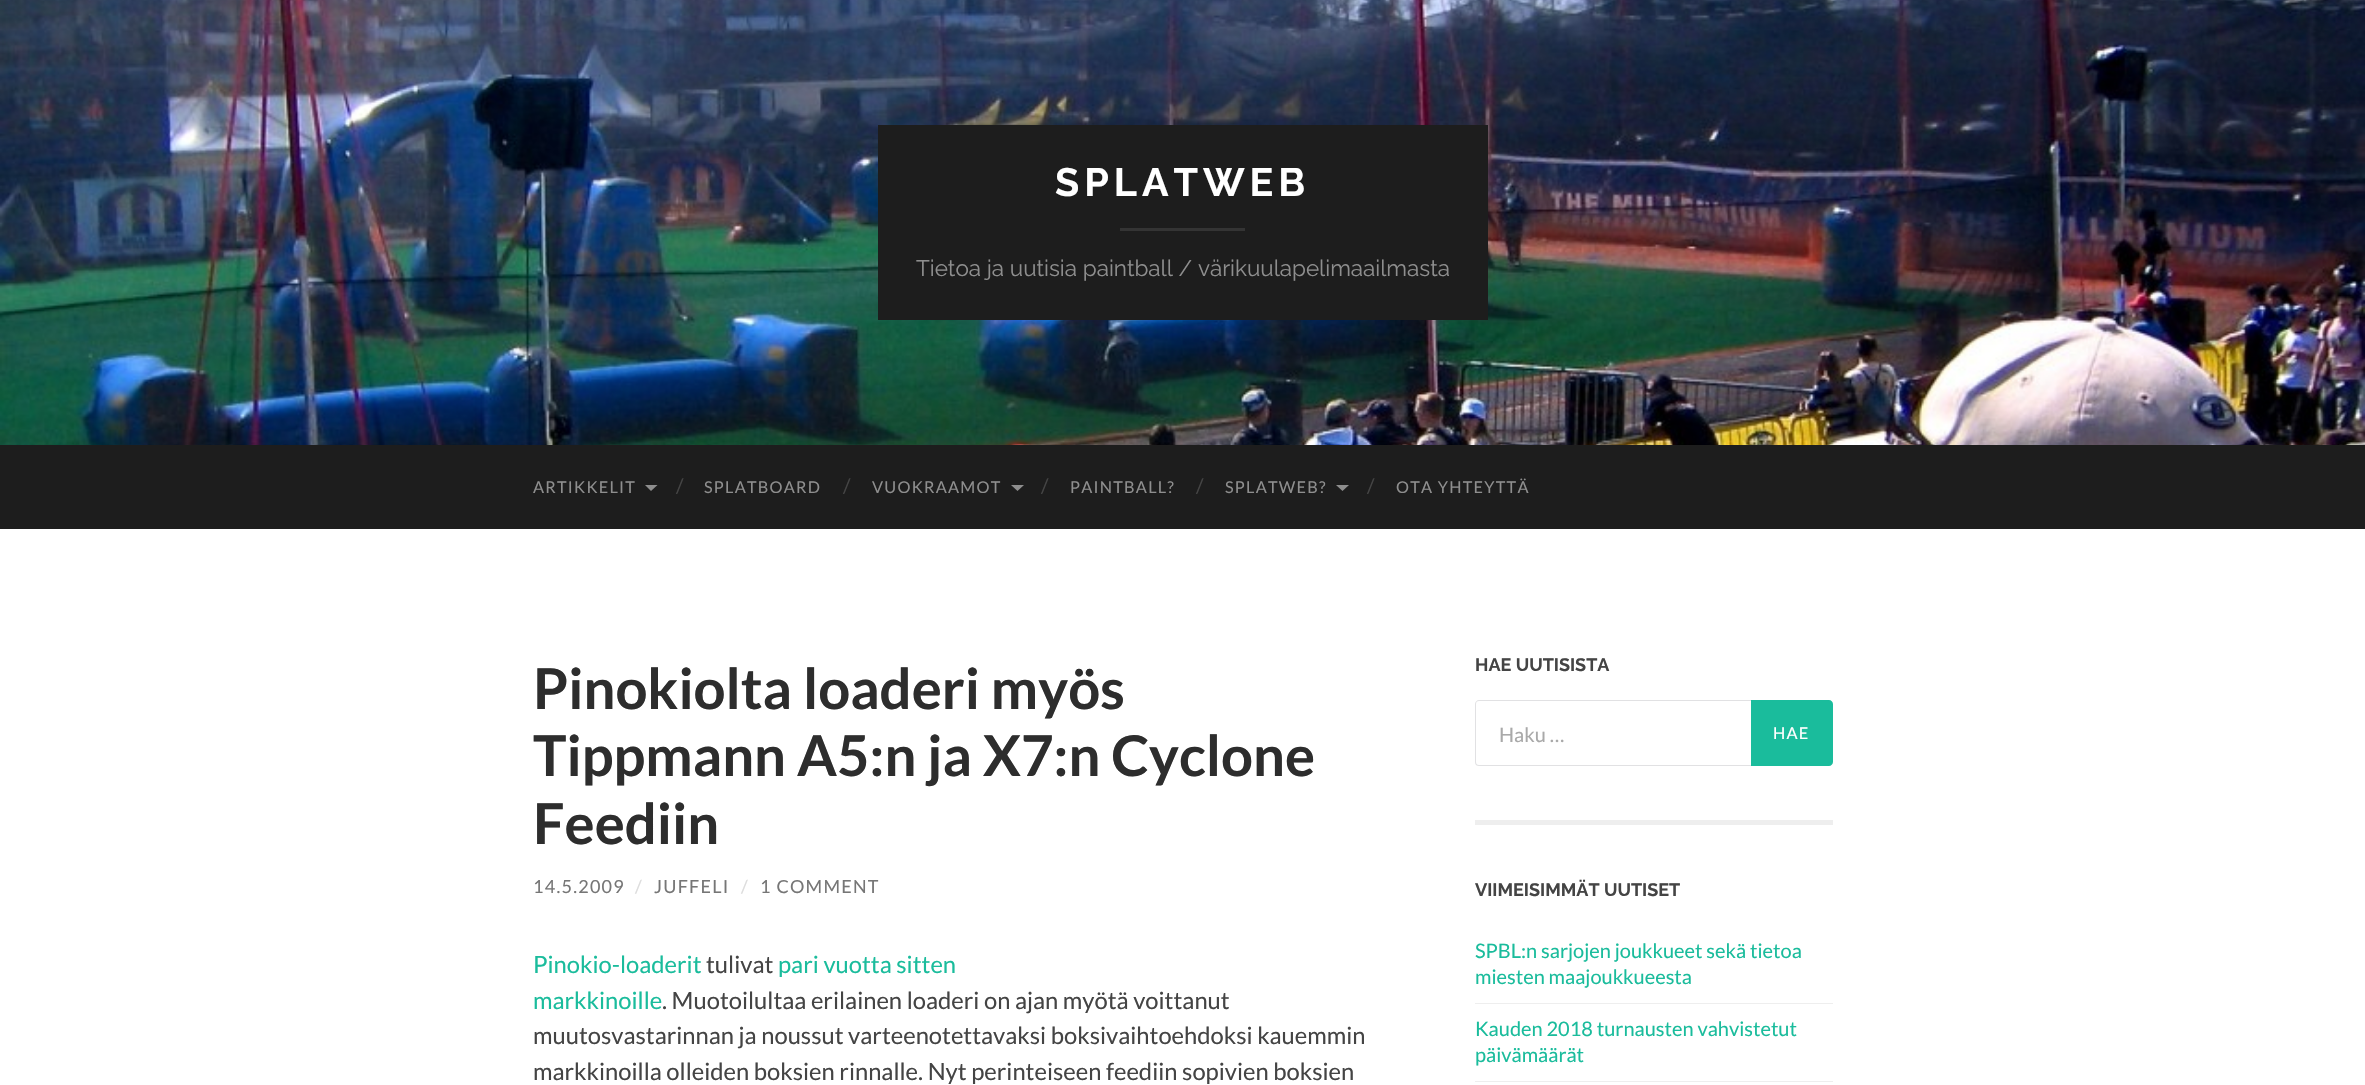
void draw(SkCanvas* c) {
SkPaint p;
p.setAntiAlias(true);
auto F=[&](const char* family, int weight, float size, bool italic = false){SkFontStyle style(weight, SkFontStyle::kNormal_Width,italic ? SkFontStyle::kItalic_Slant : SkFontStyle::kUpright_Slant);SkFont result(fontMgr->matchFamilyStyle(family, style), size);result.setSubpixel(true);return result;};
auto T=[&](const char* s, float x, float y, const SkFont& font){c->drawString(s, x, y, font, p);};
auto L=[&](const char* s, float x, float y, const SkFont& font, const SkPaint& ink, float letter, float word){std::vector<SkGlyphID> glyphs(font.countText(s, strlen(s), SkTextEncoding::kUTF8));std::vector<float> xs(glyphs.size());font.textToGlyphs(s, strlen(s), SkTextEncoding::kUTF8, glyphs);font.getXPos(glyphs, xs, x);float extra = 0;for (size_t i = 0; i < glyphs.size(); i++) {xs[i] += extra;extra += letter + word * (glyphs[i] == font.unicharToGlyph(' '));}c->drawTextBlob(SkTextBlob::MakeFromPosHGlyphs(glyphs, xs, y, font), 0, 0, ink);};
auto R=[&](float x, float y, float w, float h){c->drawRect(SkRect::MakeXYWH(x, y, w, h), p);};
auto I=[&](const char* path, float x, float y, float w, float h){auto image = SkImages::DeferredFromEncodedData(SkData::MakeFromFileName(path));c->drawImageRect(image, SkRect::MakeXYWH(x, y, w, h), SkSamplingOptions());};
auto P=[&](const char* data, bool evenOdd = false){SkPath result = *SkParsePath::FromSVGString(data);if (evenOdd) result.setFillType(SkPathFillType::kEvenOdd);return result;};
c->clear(0xffffffff);
I("1.png",0,0,2365,445);
p.setColor(0xff1d1d1d);
R(878,125,610,195);
auto f1 = F("Raleway",100,39.5);
p.setColor(0xffffffff);
L("SPLATWEB",1055,196,f1,p,5,0);
p.setColor(0xff343434);
R(1120,228,125,3);
auto f2 = F("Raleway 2",100,22.5);
p.setColor(0xff8e8e8e);
T("Tietoa ja uutisia paintball / värikuulapelimaailmasta",916,276,f2);
p.setColor(0xff1d1d1d);
R(0,445,2365,84);
auto f3 = F("Lato",400,16.25);
p.setColor(0xff8e8e8e);
L("ARTIKKELIT",533,493,f3,p,1.25,0);
c->drawPath(P("M645 485h12.5l-6.5 6z"),p);
auto f4 = F("Lato",400,20);
p.setColor(0xff444444);
T("/",676,493,f4);
p.setColor(0xff8e8e8e);
L("SPLATBOARD",704,493,f3,p,1.25,0);
p.setColor(0xff444444);
T("/",843,493,f4);
p.setColor(0xff8e8e8e);
L("VUOKRAAMOT",872,493,f3,p,1.25,0);
c->drawPath(P("M1011 485h13l-6.5 6z"),p);
p.setColor(0xff444444);
T("/",1041,493,f4);
p.setColor(0xff8e8e8e);
L("PAINTBALL?",1070,493,f3,p,1.25,0);
p.setColor(0xff444444);
T("/",1196,493,f4);
p.setColor(0xff8e8e8e);
L("SPLATWEB?",1225,493,f3,p,1.25,0);
c->drawPath(P("M1336 485h13l-6.5 6z"),p);
p.setColor(0xff444444);
T("/",1367,493,f4);
p.setColor(0xff8e8e8e);
L("OTA YHTEYTTÄ",1396,493,f3,p,1.25,0);
auto f5 = F("Lato",700,56.25);
p.setColor(0xff2d2d2d);
T("Pinokiolta loaderi myös",533,709,f5);
T("Tippmann A5:n ja X7:n Cyclone",533,776,f5);
T("Feediin",533,844,f5);
auto f6 = F("Lato",400,18);
p.setColor(0xff767676);
L("14.5.2009",533,893,f6,p,1.25,0);
p.setColor(0xffdddddd);
L("/",635,893,f6,p,1.25,0);
p.setColor(0xff767676);
L("JUFFELI",654,893,f6,p,1.25,0);
p.setColor(0xffdddddd);
L("/",741,893,f6,p,1.25,0);
p.setColor(0xff767676);
L("1 COMMENT",760,893,f6,p,1.25,0);
auto f7 = F("Lato",400,23.75);
p.setColor(0xff1abc9c);
T("Pinokio-loaderit",533,973,f7);
p.setColor(0xff444444);
T("tulivat",706,973,f7);
p.setColor(0xff1abc9c);
T("pari vuotta sitten",778,973,f7);
T("markkinoille",533,1009,f7);
p.setColor(0xff444444);
T(". Muotoilultaa erilainen loaderi on ajan myötä voittanut",662,1009,f7);
T("muutosvastarinnan ja noussut varteenotettavaksi boksivaihtoehdoksi kauemmin",533,1044,f7);
T("markkinoilla olleiden boksien rinnalle. Nyt perinteiseen feediin sopivien boksien",533,1080,f7);
p.setColor(0xffeeeeee);
R(1475,820,358,5);
auto f8 = F("Raleway",100,18);
p.setColor(0xff444444);
T("HAE UUTISISTA",1475,671,f8);
p.setColor(0xffe1e1e3);
c->drawPath(P("M1479 700h272v66h-272c-2 0-4-1-4-4v-58c0-2 2-4 4-4zm0 1h272v64h-272c-2 0-3-1-3-3v-58c0-2 1-3 3-3z",true),p);
p.setColor(0xffa9a9a9);
T("Haku …",1499,742,f4);
p.setColor(0xff1abc9c);
c->drawPath(P("M1751 700h78c2 0 4 2 4 4v58c0 2-2 4-4 4h-78z"),p);
p.setColor(0xffffffff);
L("HAE",1773,739,f3,p,1.25,0);
p.setColor(0xff444444);
T("VIIMEISIMMÄT UUTISET",1475,896,f8);
p.setColor(0xff1abc9c);
T("SPBL:n sarjojen joukkueet sekä tietoa",1475,958,f4);
T("miesten maajoukkueesta",1475,984,f4);
p.setColor(0xffeeeeee);
R(1475,1003,358,1);
p.setColor(0xff1abc9c);
T("Kauden 2018 turnausten vahvistetut",1475,1036,f4);
T("päivämäärät",1475,1062,f4);
p.setColor(0xffeeeeee);
R(1475,1081,358,1);
}
